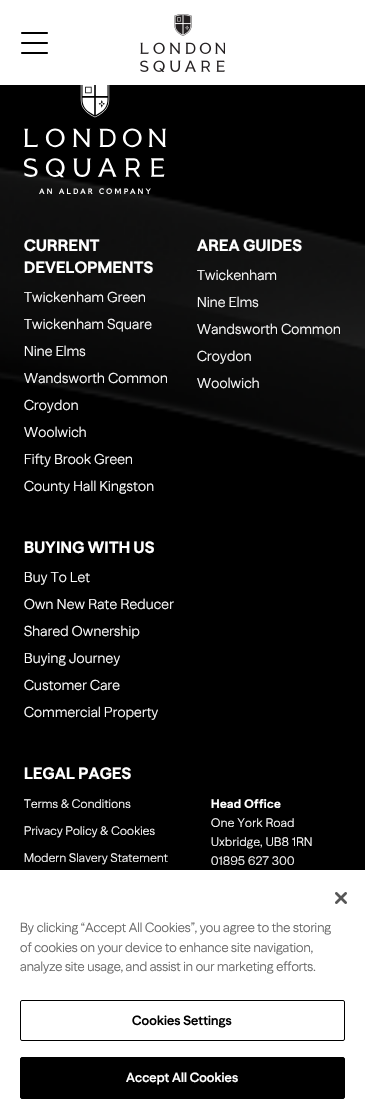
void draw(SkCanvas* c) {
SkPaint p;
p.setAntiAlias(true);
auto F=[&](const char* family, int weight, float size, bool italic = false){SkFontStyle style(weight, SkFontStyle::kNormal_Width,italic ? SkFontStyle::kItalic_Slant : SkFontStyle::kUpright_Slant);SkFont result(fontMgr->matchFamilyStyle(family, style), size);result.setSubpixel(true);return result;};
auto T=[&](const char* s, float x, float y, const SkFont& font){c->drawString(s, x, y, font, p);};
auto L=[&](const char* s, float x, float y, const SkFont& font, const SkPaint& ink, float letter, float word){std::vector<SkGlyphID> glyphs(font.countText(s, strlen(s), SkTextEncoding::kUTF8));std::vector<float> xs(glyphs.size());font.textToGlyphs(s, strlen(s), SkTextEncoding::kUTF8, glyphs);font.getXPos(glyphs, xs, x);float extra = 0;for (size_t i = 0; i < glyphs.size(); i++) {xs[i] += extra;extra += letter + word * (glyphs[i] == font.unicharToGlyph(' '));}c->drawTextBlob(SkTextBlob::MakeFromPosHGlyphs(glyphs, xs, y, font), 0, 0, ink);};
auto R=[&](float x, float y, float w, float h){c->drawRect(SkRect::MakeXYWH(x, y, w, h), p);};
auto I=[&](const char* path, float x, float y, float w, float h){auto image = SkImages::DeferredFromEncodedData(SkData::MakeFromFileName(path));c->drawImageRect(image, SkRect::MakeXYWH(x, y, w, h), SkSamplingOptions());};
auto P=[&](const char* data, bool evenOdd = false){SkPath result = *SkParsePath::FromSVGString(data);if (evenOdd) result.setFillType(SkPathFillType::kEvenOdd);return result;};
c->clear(0xff000000);
p.setColor(0xffffffff);
R(0,0,365,85);
p.setColor(0xff000000);
c->drawPath(P("M22 32h13v2h-13c-.5 0-1-.5-1-1c0-.5 .5-1 1-1z"),p);
c->drawPath(P("M34 32h13c.5 0 1 .5 1 1c0 .5-.5 1-1 1h-13z"),p);
c->drawPath(P("M22 42h13v2h-13c-.5 0-1-.5-1-1c0-.5 .5-1 1-1z"),p);
c->drawPath(P("M34 42h13c.5 0 1 .5 1 1c0 .5-.5 1-1 1h-13z"),p);
c->drawPath(P("M22 52h13v2h-13c-.5 0-1-.5-1-1c0-.5 .5-1 1-1z"),p);
c->drawPath(P("M34 52h13c.5 0 1 .5 1 1c0 .5-.5 1-1 1h-13z"),p);
I("1.png",140,14,85,58);
I("2.png",0,167,365,291);
I("3.png",24,85,142,109);
auto f1 = F("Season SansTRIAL",700,16);
p.setColor(0xffffffff);
L("CURRENT",24,251,f1,p,.25,0);
L("DEVELOPMENTS",24,273,f1,p,.25,0);
auto f2 = F("Season SansTRIAL",400,14);
L("Twickenham Green",24,302,f2,p,.25,0);
L("Twickenham Square",24,329,f2,p,.25,0);
L("Nine Elms",24,356,f2,p,.25,0);
L("Wandsworth Common",24,383,f2,p,.25,0);
L("Croydon",24,410,f2,p,.25,0);
L("Woolwich",24,437,f2,p,.25,0);
L("Fifty Brook Green",24,464,f2,p,.25,0);
L("County Hall Kingston",24,491,f2,p,.25,0);
L("AREA GUIDES",197,251,f1,p,.25,0);
L("Twickenham",197,280,f2,p,.25,0);
L("Nine Elms",197,307,f2,p,.25,0);
L("Wandsworth Common",197,334,f2,p,.25,0);
L("Croydon",197,361,f2,p,.25,0);
L("Woolwich",197,388,f2,p,.25,0);
L("BUYING WITH US",24,553,f1,p,.25,0);
L("Buy To Let",24,582,f2,p,.25,0);
L("Own New Rate Reducer",24,609,f2,p,.25,0);
L("Shared Ownership",24,636,f2,p,.25,0);
L("Buying Journey",24,663,f2,p,.25,0);
L("Customer Care",24,690,f2,p,.25,0);
L("Commercial Property",24,717,f2,p,.25,0);
L("LEGAL PAGES",24,779,f1,p,.25,0);
auto f3 = F("Season SansTRIAL",400,12);
L("Terms & Conditions",24,808,f3,p,.25,0);
L("Privacy Policy & Cookies",24,835,f3,p,.25,0);
L("Modern Slavery Statement",24,862,f3,p,.25,0);
auto f4 = F("Season SansTRIAL",700,12);
L("Head Office",211,808,f4,p,.4,0);
L("One York Road",211,827,f3,p,.4,0);
L("Uxbridge, UB8 1RN",211,846,f3,p,.4,0);
L("01895 627 300",211,865,f3,p,.4,0);
p.setColor(0x33000000);
p.setMaskFilter(SkMaskFilter::MakeBlur(kNormal_SkBlurStyle, 9));
c->drawRect(SkRect::MakeXYWH(0,870,365,245),p);
p.setMaskFilter(nullptr);
p.setColor(0xffffffff);
R(0,870,365,245);
I("4.png",335,892,12,12);
auto f5 = F("Season SansTRIAL",400,13);
p.setColor(0xff696969);
T("By clicking “Accept All Cookies”, you agree to the storing",20,932,f5);
T("of cookies on your device to enhance site navigation,",20,952,f5);
T("analyze site usage, and assist in our marketing efforts.",20,971,f5);
p.setStroke(true);
p.setStrokeWidth(1);
p.setColor(0xff000000);
c->drawRoundRect(SkRect::MakeXYWH(20.5,1000.5,324,40),1.5,1.5,p);
auto f6 = F("Season SansTRIAL",600,13);
p.setStroke(false);
L("Cookies Settings",132,1025,f6,p,.1,0);
c->drawRoundRect(SkRect::MakeXYWH(20.5,1057.5,324,41),1.5,1.5,p);
p.setStroke(true);
c->drawRoundRect(SkRect::MakeXYWH(20.5,1057.5,324,41),1.5,1.5,p);
p.setStroke(false);
p.setColor(0xffffffff);
L("Accept All Cookies",126,1082,f6,p,.1,0);
}
